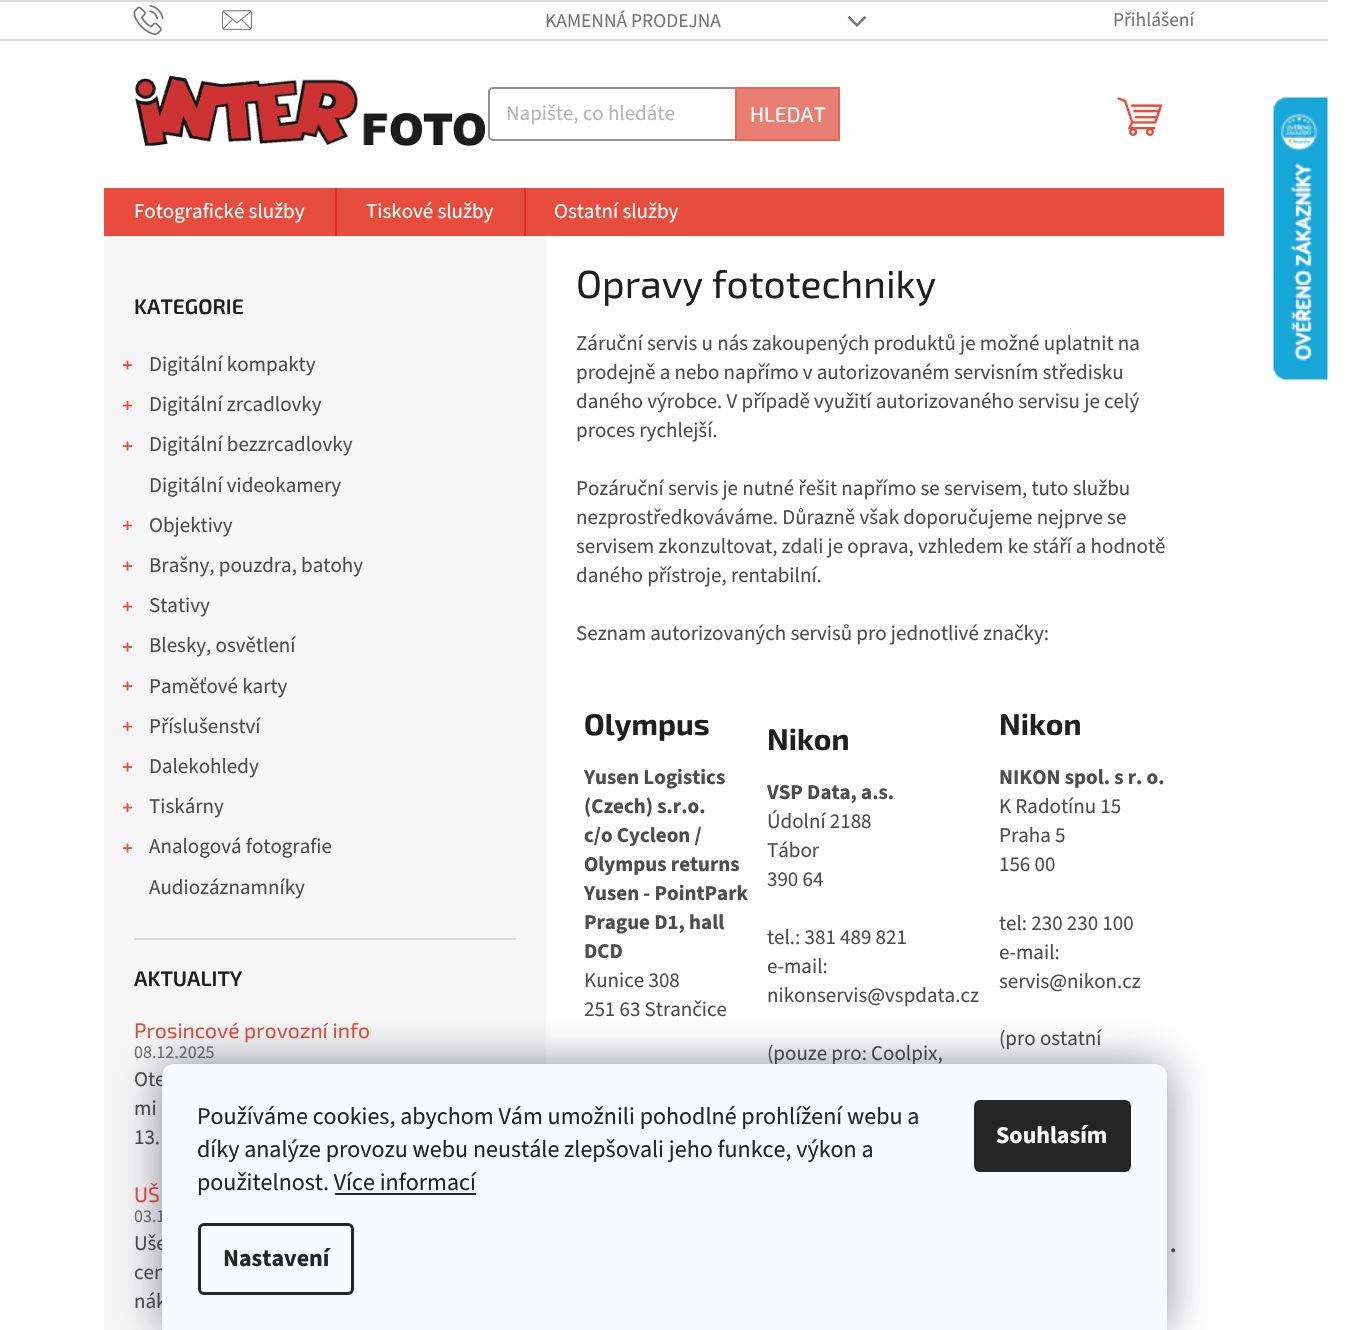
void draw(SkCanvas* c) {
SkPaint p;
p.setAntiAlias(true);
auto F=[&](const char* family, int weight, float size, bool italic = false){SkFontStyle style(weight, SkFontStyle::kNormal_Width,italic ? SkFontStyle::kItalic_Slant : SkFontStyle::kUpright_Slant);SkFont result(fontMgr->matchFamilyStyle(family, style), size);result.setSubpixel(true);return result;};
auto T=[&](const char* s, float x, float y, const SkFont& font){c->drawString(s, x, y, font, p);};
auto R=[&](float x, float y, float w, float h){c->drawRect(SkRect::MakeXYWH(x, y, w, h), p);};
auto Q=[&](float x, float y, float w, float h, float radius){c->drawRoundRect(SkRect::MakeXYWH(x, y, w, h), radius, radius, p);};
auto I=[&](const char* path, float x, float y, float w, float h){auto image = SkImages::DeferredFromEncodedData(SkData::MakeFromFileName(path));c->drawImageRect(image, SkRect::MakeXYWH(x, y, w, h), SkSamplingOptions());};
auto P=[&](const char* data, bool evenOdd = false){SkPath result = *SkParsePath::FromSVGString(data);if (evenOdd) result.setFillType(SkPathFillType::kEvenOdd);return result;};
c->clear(0xffffffff);
p.setColor(0xffdadada);
R(0,0,1328,2);
R(0,39,1328,2);
I("1.png",133,4,31,31);
I("2.png",222,10,30,20);
auto f1 = F("Source Sans 3",400,19.5);
p.setColor(0xff767676);
T("KAMENNÁ PRODEJNA",545,27,f1);
c->drawPath(P("M847.5 17.5l2-1.5l7.5 7.5l7.5-7.5l2 1.5l-9.5 9.5z"),p);
T("Přihlášení",1113,26,f1);
I("3.png",135,75,350,71);
p.setStroke(true);
p.setStrokeWidth(2);
p.setColor(0xff919191);
c->drawRoundRect(SkRect::MakeXYWH(489,88,350,52),4,4,p);
auto f2 = F("Source Sans 3",400,21);
p.setStroke(false);
p.setColor(0xffb6b6b6);
T("Napište, co hledáte",506,120,f2);
p.setColor(0xffe87e72);
c->drawRect(SkRect::MakeXYWH(736,88,103,52),p);
p.setStroke(true);
p.setColor(0xffe86456);
c->drawRect(SkRect::MakeXYWH(736,88,103,52),p);
auto f3 = F("Exo 2",400,21);
p.setStroke(false);
p.setColor(0xffffffff);
T("HLEDAT",750,122,f3);
I("4.png",1117,97,46,39);
p.setColor(0xffe74c3c);
R(104,188,1120,48);
p.setColor(0xffffffff);
T("Fotografické služby",134,218,f2);
p.setColor(0xffe3301c);
R(335,188,2,48);
p.setColor(0xffffffff);
T("Tiskové služby",366,218,f2);
p.setColor(0xffe3301c);
R(524,188,2,48);
p.setColor(0xffffffff);
T("Ostatní služby",554,218,f2);
p.setColor(0xfff6f6f6);
R(104,236,442,1094);
p.setColor(0xffdadada);
R(134,938,382,2);
auto f4 = F("Exo 2",600,21);
p.setColor(0xff1f1f1f);
T("KATEGORIE",134,314,f4);
I("5.png",123,360,9,10);
p.setColor(0xff4d4d4d);
T("Digitální kompakty",149,371,f2);
I("6.png",123,401,9,10);
T("Digitální zrcadlovky",149,411,f2);
I("5.png",123,441,9,10);
T("Digitální bezzrcadlovky",149,451,f2);
T("Digitální videokamery",149,492,f2);
I("6.png",123,521,9,10);
T("Objektivy",149,532,f2);
I("5.png",123,561,9,10);
T("Brašny, pouzdra, batohy",149,572,f2);
I("6.png",123,602,9,10);
T("Stativy",149,612,f2);
I("5.png",123,642,9,10);
T("Blesky, osvětlení",149,652,f2);
I("5.png",123,681,9,10);
T("Paměťové karty",149,693,f2);
I("6.png",123,722,9,10);
T("Příslušenství",149,733,f2);
I("5.png",123,762,9,10);
T("Dalekohledy",149,773,f2);
I("6.png",123,803,9,10);
T("Tiskárny",149,813,f2);
I("5.png",123,843,9,10);
T("Analogová fotografie",149,853,f2);
T("Audiozáznamníky",149,894,f2);
p.setColor(0xff1f1f1f);
T("AKTUALITY",134,986,f4);
p.setColor(0xffe74c3c);
T("Prosincové provozní info",134,1038,f3);
auto f5 = F("Source Sans 3",400,18);
p.setColor(0xff707070);
T("08.12.2025",134,1058,f5);
p.setColor(0xff4d4d4d);
T("Ote",134,1086,f2);
T("mi",134,1115,f2);
T("13.",134,1144,f2);
p.setColor(0xffe74c3c);
T("UŠ",134,1202,f3);
p.setColor(0xff707070);
T("03.1",134,1222,f5);
p.setColor(0xff4d4d4d);
T("Uše",134,1250,f2);
T("cen",134,1279,f2);
T("nák",134,1308,f2);
auto f6 = F("Exo 2",400,39);
p.setColor(0xff1f1f1f);
T("Opravy fototechniky",576,298,f6);
p.setColor(0xff4d4d4d);
T("Záruční servis u nás zakoupených produktů je možné uplatnit na",576,350,f2);
T("prodejně a nebo napřímo v autorizovaném servisním středisku",576,379,f2);
T("daného výrobce. V případě využití autorizovaného servisu je celý",576,408,f2);
T("proces rychlejší.",576,437,f2);
T("Pozáruční servis je nutné řešit napřímo se servisem, tuto službu",576,495,f2);
T("nezprostředkováváme. Důrazně však doporučujeme nejprve se",576,524,f2);
T("servisem zkonzultovat, zdali je oprava, vzhledem ke stáří a hodnotě",576,553,f2);
T("daného přístroje, rentabilní.",576,582,f2);
T("Seznam autorizovaných servisů pro jednotlivé značky:",576,640,f2);
auto f7 = F("Exo 2",700,30);
p.setColor(0xff1f1f1f);
T("Olympus",584,735,f7);
auto f8 = F("Source Sans 3",700,21);
p.setColor(0xff4d4d4d);
T("Yusen Logistics",584,784,f8);
T("(Czech) s.r.o.",584,813,f8);
T("c/o Cycleon /",584,842,f8);
T("Olympus returns",584,871,f8);
T("Yusen - PointPark",584,900,f8);
T("Prague D1, hall",584,929,f8);
T("DCD",584,958,f8);
T("Kunice 308",584,987,f2);
T("251 63 Strančice",584,1016,f2);
p.setColor(0xff1f1f1f);
T("Nikon",767,750,f7);
p.setColor(0xff4d4d4d);
T("VSP Data, a.s.",767,799,f8);
T("Údolní 2188",767,828,f2);
T("Tábor",767,857,f2);
T("390 64",767,886,f2);
T("tel.: 381 489 821",767,944,f2);
T("e-mail:",767,973,f2);
T("nikonservis@vspdata.cz",767,1002,f2);
T("(pouze pro: Coolpix,",767,1060,f2);
p.setColor(0xff1f1f1f);
T("Nikon",999,735,f7);
p.setColor(0xff4d4d4d);
T("NIKON spol. s r. o.",999,784,f8);
T("K Radotínu 15",999,813,f2);
T("Praha 5",999,842,f2);
T("156 00",999,871,f2);
T("tel: 230 230 100",999,930,f2);
T("e-mail:",999,959,f2);
T("servis@nikon.cz",999,988,f2);
T("(pro ostatní",999,1045,f2);
T(".",1170,1252,f8);
I("7.png",1273,97,55,283);
p.setColor(0x801b1939);
p.setMaskFilter(SkMaskFilter::MakeBlur(kNormal_SkBlurStyle, 22.5));
c->drawRoundRect(SkRect::MakeXYWH(162,1064,1005,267),12,12,p);
p.setMaskFilter(nullptr);
p.setColor(0xfff8fafb);
c->drawPath(P("M174 1064h981c6.5 0 12 5.5 12 12v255h-1005v-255c0-6.5 5.5-12 12-12z"),p);
auto f9 = F("Source Sans 3",400,24);
p.setColor(0xff252525);
T("Používáme cookies, abychom Vám umožnili pohodlné prohlížení webu a",197,1124,f9);
T("díky analýze provozu webu neustále zlepšovali jeho funkce, výkon a",197,1157,f9);
T("použitelnost. Více informací",197,1190,f9);
R(335,1193,141,2);
p.setStroke(true);
p.setStrokeWidth(3);
c->drawRoundRect(SkRect::MakeXYWH(199.5,1224.5,153,69),4.5,4.5,p);
auto f10 = F("Source Sans 3",700,24);
p.setStroke(false);
T("Nastavení",223,1266,f10);
Q(974,1100,157,72,6);
p.setColor(0xfff8fafb);
T("Souhlasím",996,1143,f10);
}
